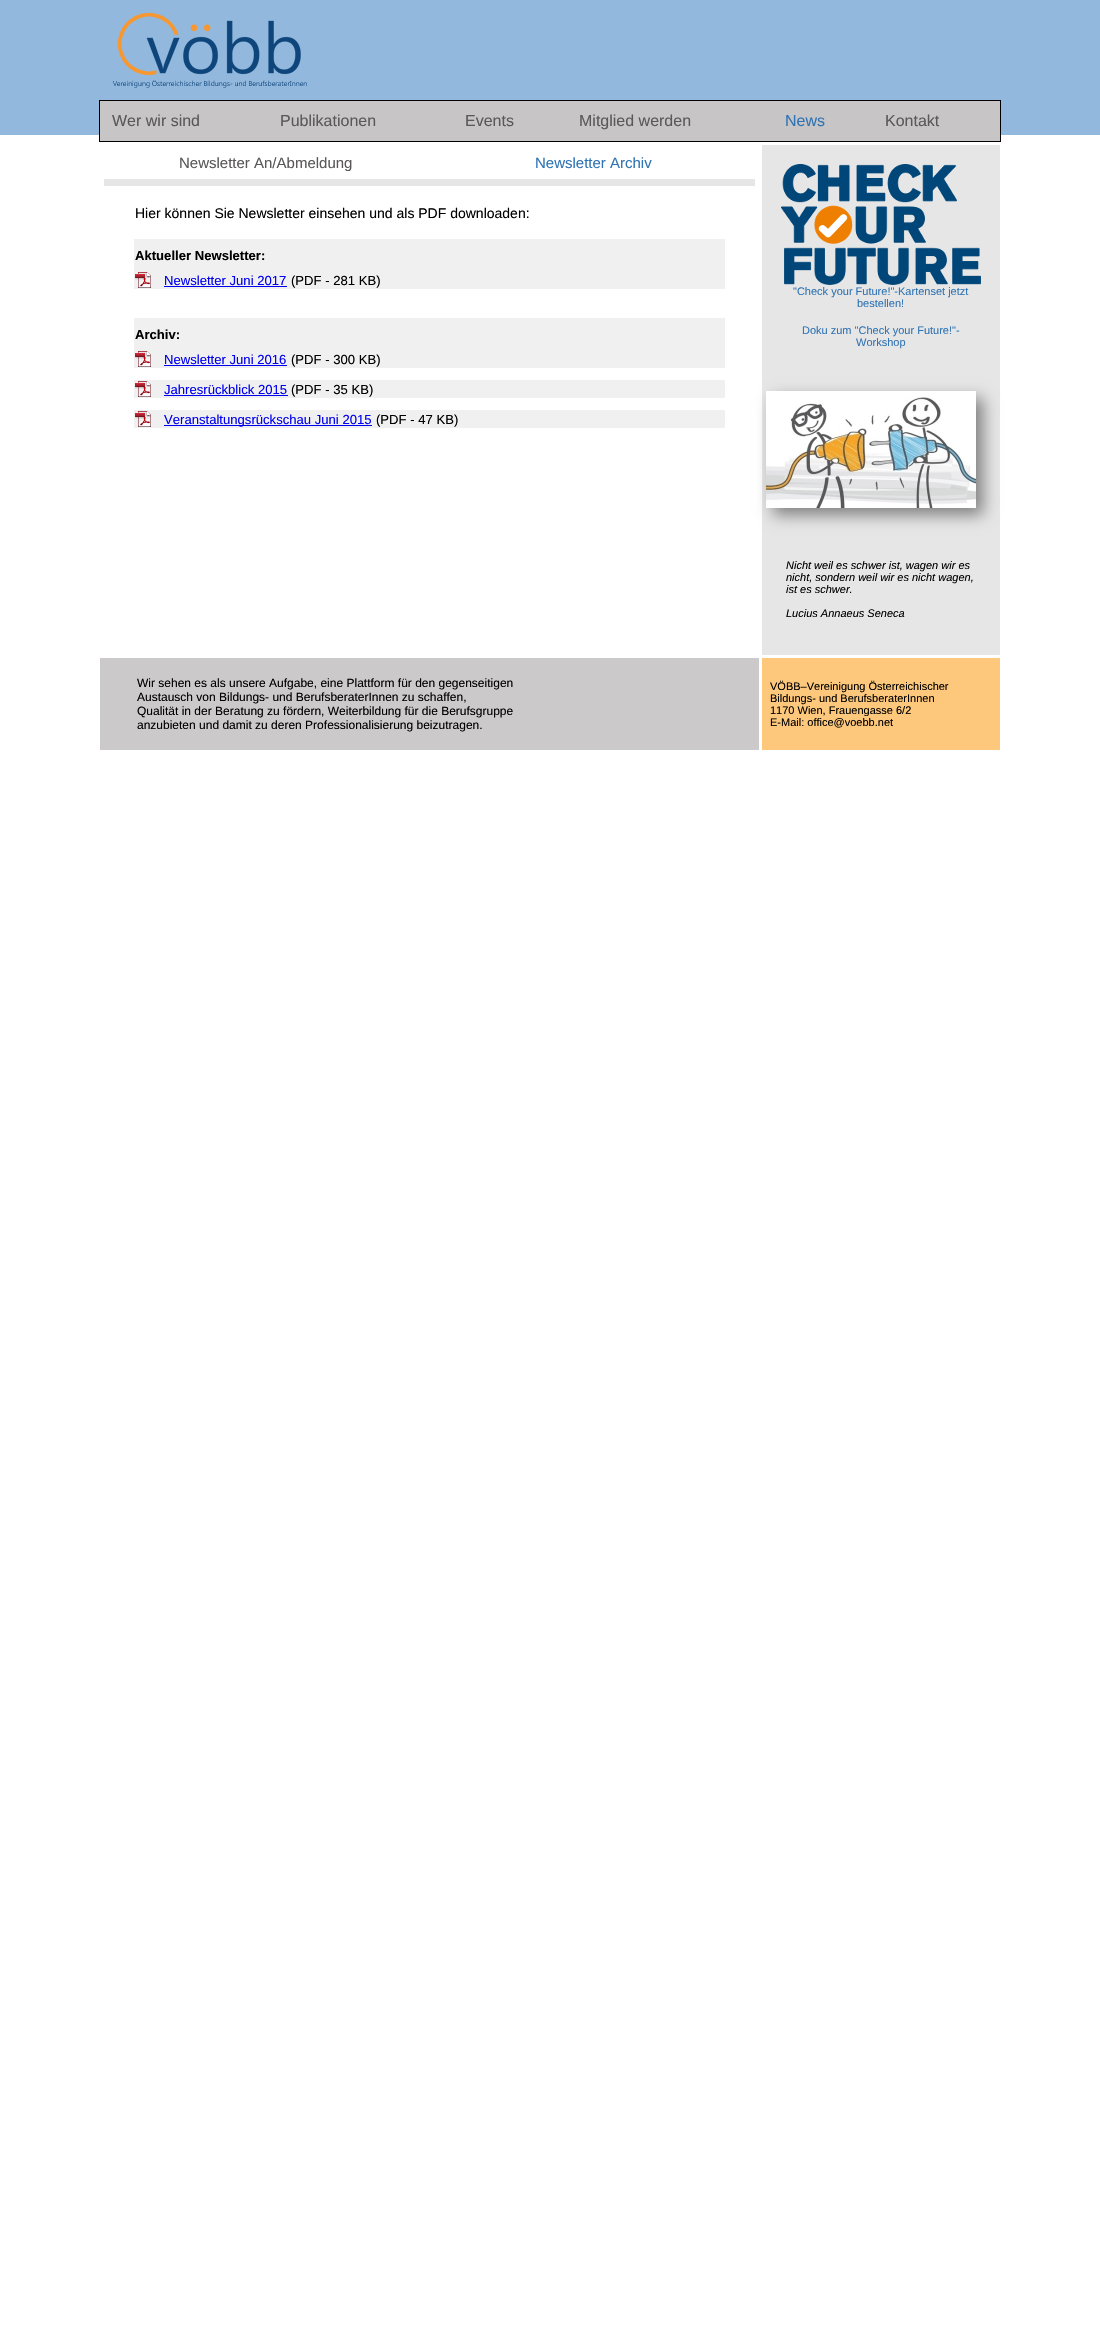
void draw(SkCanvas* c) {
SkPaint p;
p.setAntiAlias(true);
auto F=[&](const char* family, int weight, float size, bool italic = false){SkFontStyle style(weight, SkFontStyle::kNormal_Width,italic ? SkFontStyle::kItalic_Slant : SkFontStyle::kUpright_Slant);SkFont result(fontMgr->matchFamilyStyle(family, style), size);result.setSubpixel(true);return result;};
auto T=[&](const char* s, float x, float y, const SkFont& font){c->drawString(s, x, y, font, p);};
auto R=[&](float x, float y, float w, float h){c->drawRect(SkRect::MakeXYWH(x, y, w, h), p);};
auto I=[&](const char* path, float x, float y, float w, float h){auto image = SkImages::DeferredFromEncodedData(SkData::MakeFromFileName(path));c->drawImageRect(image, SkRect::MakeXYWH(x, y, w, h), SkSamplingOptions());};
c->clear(0xffffffff);
p.setColor(0xff92b8dd);
R(0,0,1100,135);
I("1.png",112,12,195,76);
p.setColor(0xffc7c5c6);
c->drawRect(SkRect::MakeXYWH(99.5,100.5,901,41),p);
p.setStroke(true);
p.setStrokeWidth(1);
p.setColor(0xff000000);
c->drawRect(SkRect::MakeXYWH(99.5,100.5,901,41),p);
auto f1 = F("Liberation Sans",400,16);
p.setStroke(false);
p.setColor(0xff5a5859);
T("Wer wir sind",112,126,f1);
T("Publikationen",280,126,f1);
T("Events",465,126,f1);
T("Mitglied werden",579,126,f1);
p.setColor(0xff3074b3);
T("News",785,126,f1);
p.setColor(0xff5a5859);
T("Kontakt",885,126,f1);
auto f2 = F("Liberation Sans",400,15);
T("Newsletter An/Abmeldung",179,168,f2);
p.setColor(0xff3074b3);
T("Newsletter Archiv",535,168,f2);
p.setColor(0xffe6e6e6);
R(104,179,651,7);
R(762,145,238,510);
I("2.png",781,164,200,121);
auto f3 = F("Liberation Sans",400,11);
p.setColor(0xff3074b3);
T("\"Check your Future!\"-Kartenset jetzt",793,295,f3);
T("bestellen!",857,307,f3);
T("Doku zum \"Check your Future!\"-",802,334,f3);
T("Workshop",856,346,f3);
p.setColor(0xff808080);
p.setMaskFilter(SkMaskFilter::MakeBlur(kNormal_SkBlurStyle, 7.5));
c->drawRect(SkRect::MakeXYWH(773,398,210,117),p);
p.setMaskFilter(nullptr);
I("3.png",766,391,210,117);
auto f4 = F("Liberation Sans",400,11,true);
p.setColor(0xff000000);
T("Nicht weil es schwer ist, wagen wir es",786,569,f4);
T("nicht, sondern weil wir es nicht wagen,",786,581,f4);
T("ist es schwer.",786,593,f4);
T("Lucius Annaeus Seneca",786,617,f4);
auto f5 = F("Liberation Sans",400,14);
T("Hier können Sie Newsletter einsehen und als PDF downloaden:",135,218,f5);
p.setColor(0xfff0f0f0);
R(134,239,591,32);
auto f6 = F("Liberation Sans",700,13.1);
p.setColor(0xff000000);
T("Aktueller Newsletter:",135,260,f6);
p.setColor(0xfff0f0f0);
R(134,271,591,18);
I("4.png",135,272,16,16);
auto f7 = F("Liberation Sans",400,13.1);
p.setColor(0xff0000ee);
T("Newsletter Juni 2017",164,285,f7);
R(164,286,123,1);
p.setColor(0xff000000);
T("(PDF - 281 KB)",291,285,f7);
p.setColor(0xfff0f0f0);
R(134,318,591,32);
p.setColor(0xff000000);
T("Archiv:",135,339,f6);
p.setColor(0xfff0f0f0);
R(134,350,591,18);
I("4.png",135,351,16,16);
p.setColor(0xff0000ee);
T("Newsletter Juni 2016",164,364,f7);
R(164,365,123,1);
p.setColor(0xff000000);
T("(PDF - 300 KB)",291,364,f7);
p.setColor(0xfff0f0f0);
R(134,380,591,18);
I("4.png",135,381,16,16);
p.setColor(0xff0000ee);
T("Jahresrückblick 2015",164,394,f7);
R(164,395,124,1);
p.setColor(0xff000000);
T("(PDF - 35 KB)",291,394,f7);
p.setColor(0xfff0f0f0);
R(134,410,591,18);
I("4.png",135,411,16,16);
p.setColor(0xff0000ee);
R(164,425,208,1);
T("Veranstaltungsrückschau Juni 2015",164,424,f7);
p.setColor(0xff000000);
T("(PDF - 47 KB)",376,424,f7);
p.setColor(0xffcbc9ca);
R(100,658,659,92);
auto f8 = F("Liberation Sans",400,12);
p.setColor(0xff000000);
T("Wir sehen es als unsere Aufgabe, eine Plattform für den gegenseitigen",137,687,f8);
T("Austausch von Bildungs- und BerufsberaterInnen zu schaffen,",137,701,f8);
T("Qualität in der Beratung zu fördern, Weiterbildung für die Berufsgruppe",137,715,f8);
T("anzubieten und damit zu deren Professionalisierung beizutragen.",137,729,f8);
p.setColor(0xfffdc87c);
R(762,658,238,92);
p.setColor(0xff000000);
T("VÖBB–Vereinigung Österreichischer",770,690,f3);
T("Bildungs- und BerufsberaterInnen",770,702,f3);
T("1170 Wien, Frauengasse 6/2",770,714,f3);
T("E-Mail: office@voebb.net",770,726,f3);
p.setColor(0xfffdc87c);
R(865,716,3,1);
}
